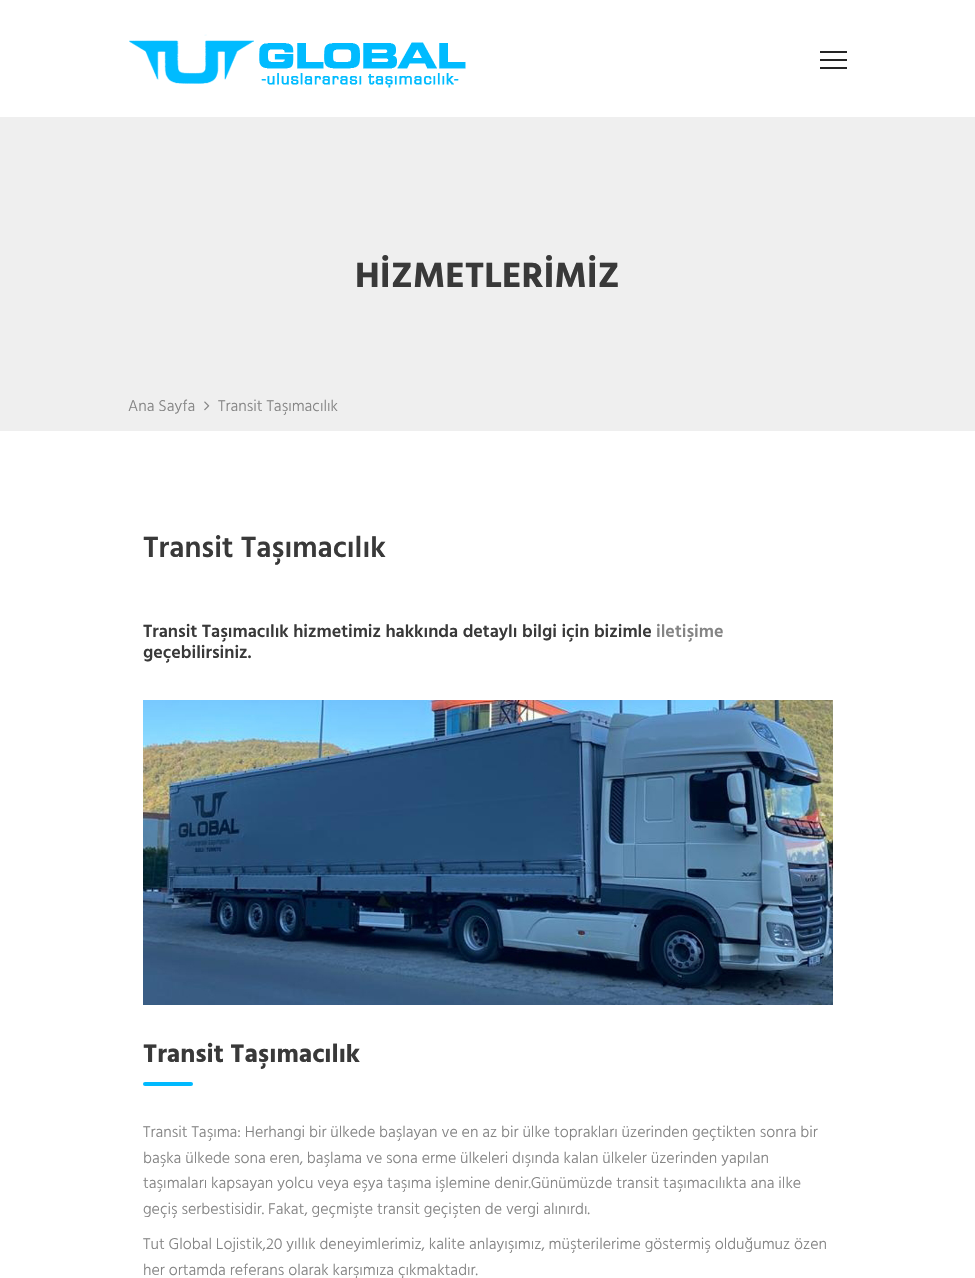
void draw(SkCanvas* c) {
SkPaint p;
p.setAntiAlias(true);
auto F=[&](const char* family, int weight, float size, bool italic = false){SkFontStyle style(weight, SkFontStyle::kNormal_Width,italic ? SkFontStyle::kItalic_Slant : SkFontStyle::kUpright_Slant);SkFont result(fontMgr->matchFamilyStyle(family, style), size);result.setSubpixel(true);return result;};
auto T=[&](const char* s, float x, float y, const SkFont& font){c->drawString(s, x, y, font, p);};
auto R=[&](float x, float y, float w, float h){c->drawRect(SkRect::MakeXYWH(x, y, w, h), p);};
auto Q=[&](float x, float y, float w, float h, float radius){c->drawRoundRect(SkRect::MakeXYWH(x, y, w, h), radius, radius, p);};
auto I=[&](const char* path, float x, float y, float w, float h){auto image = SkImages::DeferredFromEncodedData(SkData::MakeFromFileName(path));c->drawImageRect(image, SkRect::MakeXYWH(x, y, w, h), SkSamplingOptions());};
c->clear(0xffffffff);
I("1.png",129,34,337,54);
p.setColor(0xff252525);
R(820,59,27,2);
R(820,51,27,2);
R(820,67,27,2);
p.setColor(0xffefefef);
R(0,117,975,314);
auto f1 = F("Hind",700,36);
p.setColor(0xff393939);
T("HİZMETLERİMİZ",355,287,f1);
auto f2 = F("Hind",300,16);
p.setColor(0xff848484);
T("Ana Sayfa",128,411,f2);
I("2.png",204,401,6,10);
T("Transit Taşımacılık",218,411,f2);
auto f3 = F("Hind",600,30);
p.setColor(0xff393939);
T("Transit Taşımacılık",143,557,f3);
auto f4 = F("Hind",600,18);
T("Transit Taşımacılık hizmetimiz hakkında detaylı bilgi için bizimle",143,637,f4);
p.setColor(0xff848484);
T("iletişime",656,637,f4);
p.setColor(0xff393939);
T("geçebilirsiniz.",143,658,f4);
I("3.png",143,700,690,305);
auto f5 = F("Hind",700,26);
T("Transit Taşımacılık",143,1062,f5);
p.setColor(0xff00baff);
Q(143,1082,50,4,2);
p.setColor(0xff848484);
T("Transit Taşıma: Herhangi bir ülkede başlayan ve en az bir ülke toprakları üzerinden geçtikten sonra bir",143,1137,f2);
T("başka ülkede sona eren, başlama ve sona erme ülkeleri dışında kalan ülkeler üzerinden yapılan",143,1163,f2);
T("taşımaları kapsayan yolcu veya eşya taşıma işlemine denir.Günümüzde transit taşımacılıkta ana ilke",143,1188,f2);
T("geçiş serbestisidir. Fakat, geçmişte transit geçişten de vergi alınırdı.",143,1214,f2);
T("Tut Global Lojistik,20 yıllık deneyimlerimiz, kalite anlayışımız, müşterilerime göstermiş olduğumuz özen",143,1249,f2);
T("her ortamda referans olarak karşımıza çıkmaktadır.",143,1275,f2);
}
